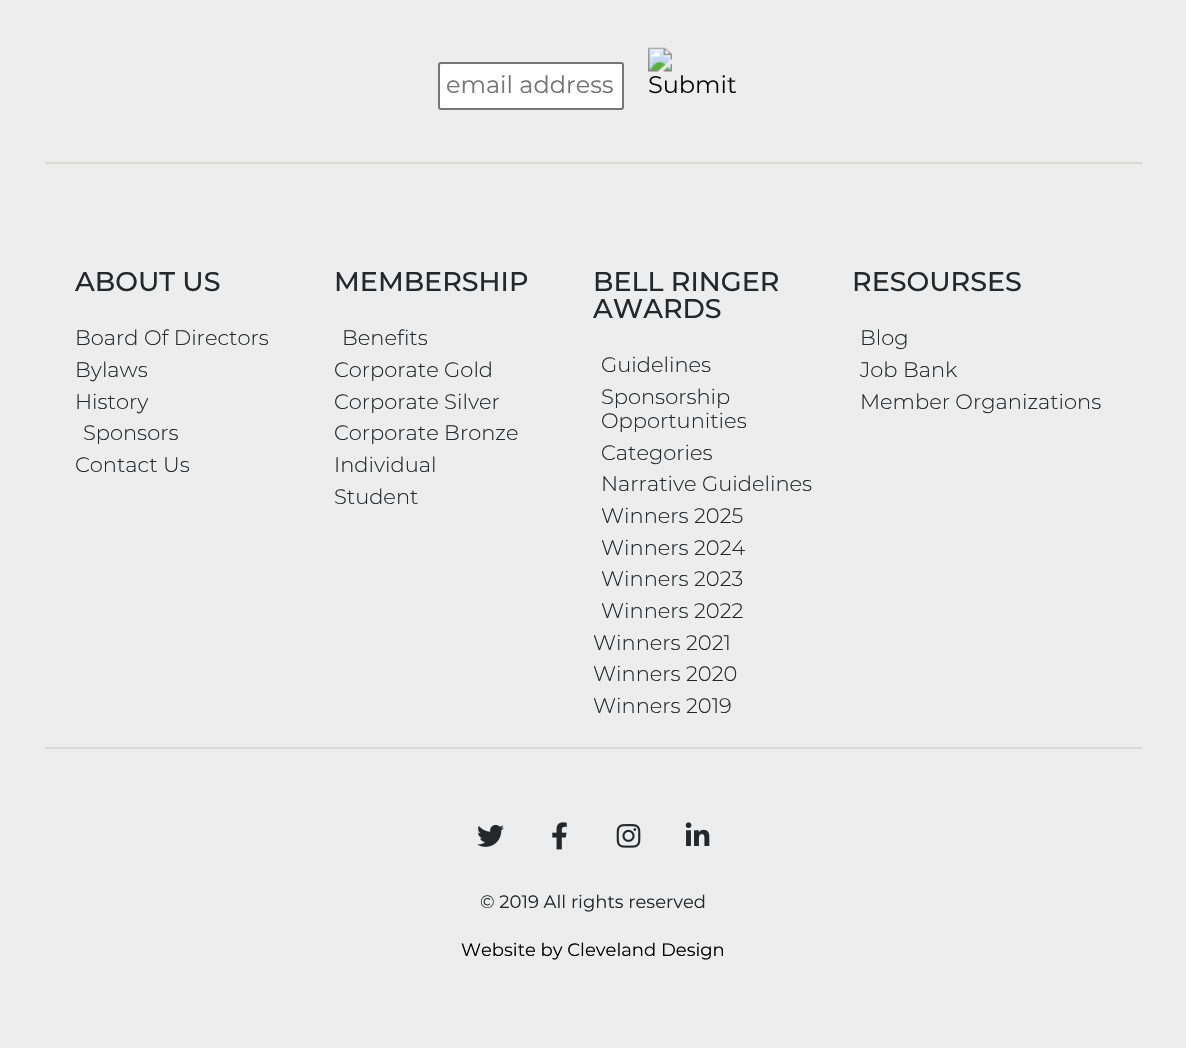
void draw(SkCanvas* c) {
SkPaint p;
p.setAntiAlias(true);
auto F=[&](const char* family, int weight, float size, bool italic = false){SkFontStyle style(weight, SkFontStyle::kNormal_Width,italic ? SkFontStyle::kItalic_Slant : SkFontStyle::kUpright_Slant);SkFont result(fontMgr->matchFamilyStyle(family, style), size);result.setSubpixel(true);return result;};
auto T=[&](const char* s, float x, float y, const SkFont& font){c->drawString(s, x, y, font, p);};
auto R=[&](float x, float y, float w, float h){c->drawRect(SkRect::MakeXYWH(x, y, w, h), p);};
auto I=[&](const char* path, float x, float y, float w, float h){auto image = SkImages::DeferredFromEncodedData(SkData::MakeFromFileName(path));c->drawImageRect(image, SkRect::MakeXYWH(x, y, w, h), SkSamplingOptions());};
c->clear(0xffededed);
p.setColor(0xffffffff);
c->drawRoundRect(SkRect::MakeXYWH(439,63,184,46),2,2,p);
p.setStroke(true);
p.setStrokeWidth(2);
p.setColor(0xff767676);
c->drawRoundRect(SkRect::MakeXYWH(439,63,184,46),2,2,p);
auto f1 = F("Montserrat",400,24);
p.setStroke(false);
p.setColor(0xff757575);
T("email address",446,93,f1);
I("1.png",648,47,88,47);
p.setColor(0xffd9d9d6);
R(45,162,1097,2);
auto f2 = F("Montserrat",500,27);
p.setColor(0xff25282a);
T("ABOUT US",75,291,f2);
auto f3 = F("Montserrat",300,21);
T("Board Of Directors",75,345,f3);
T("Bylaws",75,377,f3);
T("History",75,409,f3);
T("Sponsors",83,440,f3);
T("Contact Us",75,472,f3);
T("MEMBERSHIP",334,291,f2);
T("Benefits",342,345,f3);
T("Corporate Gold",334,377,f3);
T("Corporate Silver",334,409,f3);
T("Corporate Bronze",334,440,f3);
T("Individual",334,472,f3);
T("Student",334,504,f3);
T("BELL RINGER",593,291,f2);
T("AWARDS",593,318,f2);
T("Guidelines",601,372,f3);
T("Sponsorship",601,404,f3);
T("Opportunities",601,428,f3);
T("Categories",601,460,f3);
T("Narrative Guidelines",601,491,f3);
T("Winners 2025",601,523,f3);
T("Winners 2024",601,555,f3);
T("Winners 2023",601,586,f3);
T("Winners 2022",601,618,f3);
T("Winners 2021",593,650,f3);
T("Winners 2020",593,681,f3);
T("Winners 2019",593,713,f3);
T("RESOURSES",852,291,f2);
T("Blog",860,345,f3);
T("Job Bank",860,377,f3);
T("Member Organizations",860,409,f3);
p.setColor(0xffd9d9d6);
R(45,747,1097,2);
I("2.png",477,824,27,23);
I("3.png",552,822,15,28);
I("4.png",616,824,25,24);
I("5.png",685,822,25,24);
auto f4 = F("Montserrat",400,18);
p.setColor(0xff25282a);
T("© 2019 All rights reserved",480,908,f4);
p.setColor(0xff000000);
T("Website by Cleveland Design",461,956,f4);
}
